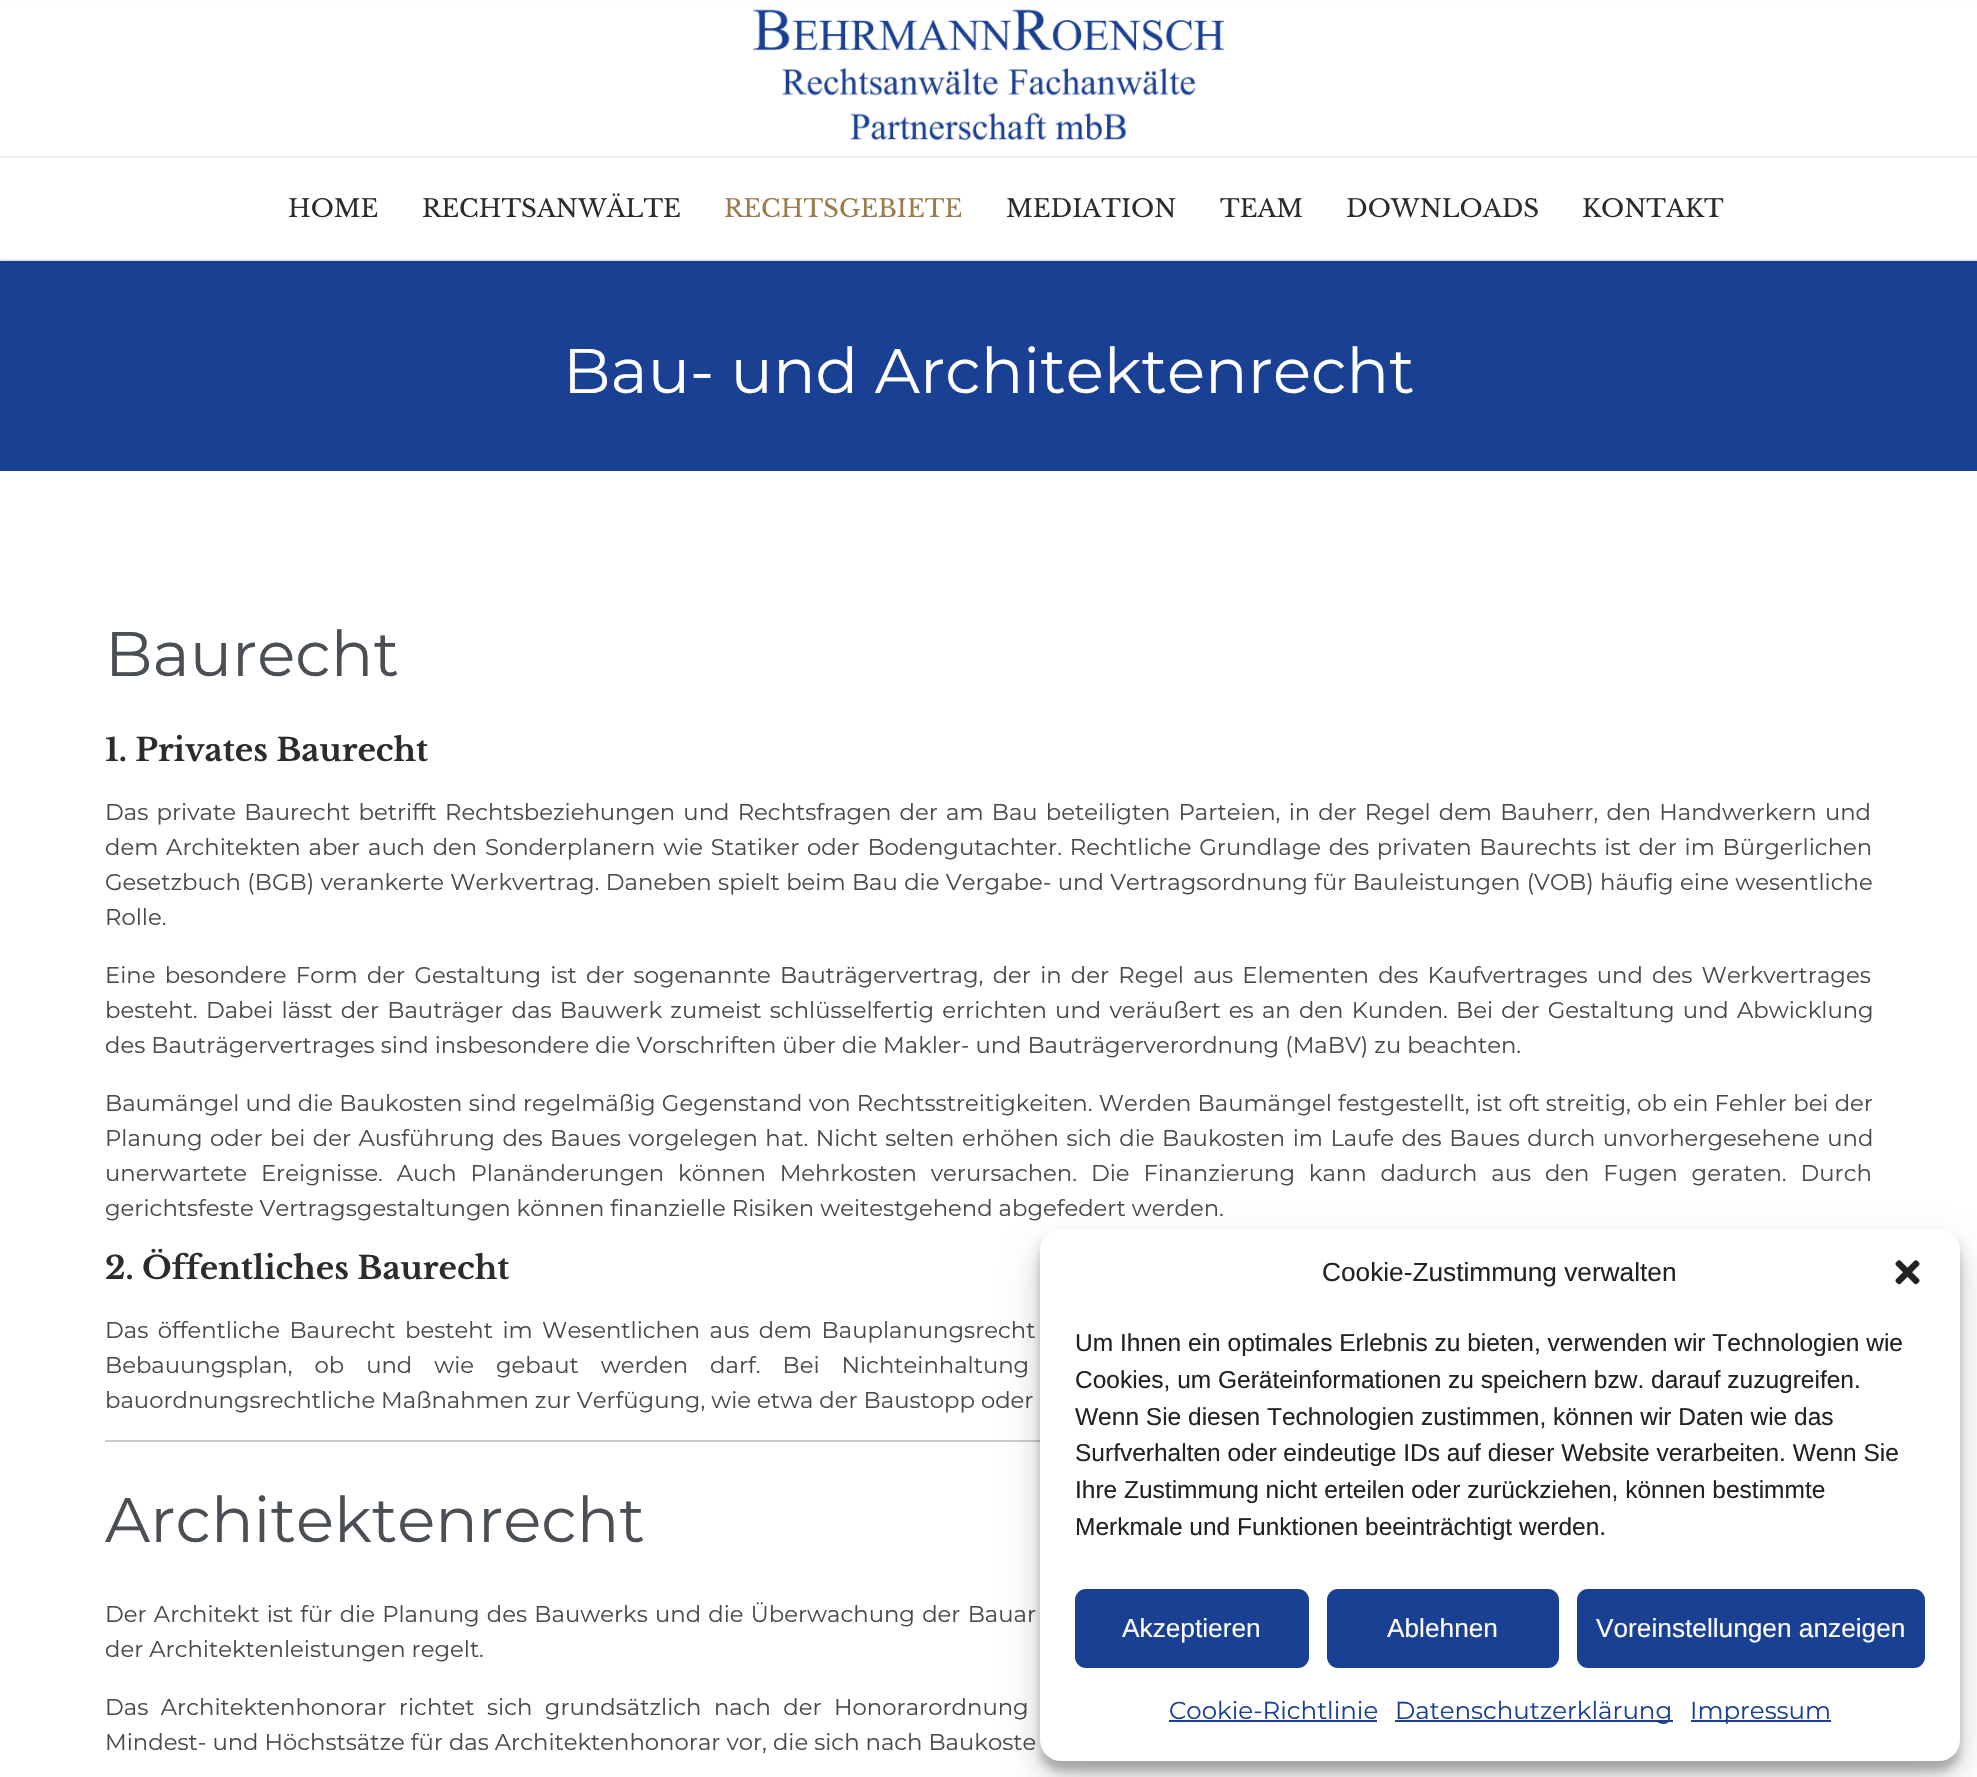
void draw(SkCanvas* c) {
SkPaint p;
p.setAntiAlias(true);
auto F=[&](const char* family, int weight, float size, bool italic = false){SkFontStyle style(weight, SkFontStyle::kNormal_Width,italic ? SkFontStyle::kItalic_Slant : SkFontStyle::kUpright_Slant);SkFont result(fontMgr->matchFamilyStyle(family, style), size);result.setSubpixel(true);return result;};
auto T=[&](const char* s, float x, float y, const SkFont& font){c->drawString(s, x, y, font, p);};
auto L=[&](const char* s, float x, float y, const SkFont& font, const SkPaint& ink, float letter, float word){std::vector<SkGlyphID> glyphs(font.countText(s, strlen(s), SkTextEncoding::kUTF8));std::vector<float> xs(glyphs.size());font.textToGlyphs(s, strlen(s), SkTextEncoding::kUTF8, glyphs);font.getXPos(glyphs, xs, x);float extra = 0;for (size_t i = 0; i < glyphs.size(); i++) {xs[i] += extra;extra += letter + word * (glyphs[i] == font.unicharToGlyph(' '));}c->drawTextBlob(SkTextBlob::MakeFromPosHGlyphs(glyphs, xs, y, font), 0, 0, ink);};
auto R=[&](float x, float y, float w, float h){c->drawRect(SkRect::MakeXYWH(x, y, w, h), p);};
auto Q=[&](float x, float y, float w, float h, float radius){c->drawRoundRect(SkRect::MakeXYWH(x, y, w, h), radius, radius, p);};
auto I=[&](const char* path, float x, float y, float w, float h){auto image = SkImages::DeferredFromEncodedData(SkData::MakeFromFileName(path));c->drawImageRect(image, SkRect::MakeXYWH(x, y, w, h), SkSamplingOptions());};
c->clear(0xffffffff);
p.setColor(0xff194093);
R(0,261,1977,210);
p.setColor(0x0a000000);
p.setMaskFilter(SkMaskFilter::MakeBlur(kNormal_SkBlurStyle, 2));
c->drawRect(SkRect::MakeXYWH(0,4,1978,260),p);
p.setMaskFilter(nullptr);
p.setColor(0xffe8e8e8);
R(0,259,1977,2);
p.setColor(0xffffffff);
R(0,3,1977,153);
p.setColor(0xffededed);
R(0,156,1977,2);
I("1.png",753,9,472,132);
p.setColor(0xffffffff);
R(0,158,1977,101);
auto f1 = F("Libre Baskerville",400,24.5);
p.setColor(0xff2c2c2c);
T("HOME",288,217,f1);
T("RECHTSANWÄLTE",422,217,f1);
p.setColor(0xff9b7b4d);
T("RECHTSGEBIETE",724,217,f1);
p.setColor(0xff2c2c2c);
T("MEDIATION",1006,217,f1);
T("TEAM",1220,217,f1);
T("DOWNLOADS",1346,217,f1);
T("KONTAKT",1582,217,f1);
auto f2 = F("Montserrat",400,63);
p.setColor(0xffffffff);
T("Bau- und Architektenrecht",563,393,f2);
p.setColor(0xff4a4f55);
T("Baurecht",105,676,f2);
auto f3 = F("Libre Baskerville",700,31.5);
p.setColor(0xff2c2c2c);
T("1. Privates Baurecht",105,761,f3);
auto f4 = F("Montserrat",400,22.75);
p.setColor(0xff4a4a4a);
L("Das private Baurecht betrifft Rechtsbeziehungen und Rechtsfragen der am Bau beteiligten Parteien, in der Regel dem Bauherr, den Handwerkern und",105,820,f4,p,0,2.25);
L("dem Architekten aber auch den Sonderplanern wie Statiker oder Bodengutachter. Rechtliche Grundlage des privaten Baurechts ist der im Bürgerlichen",105,855,f4,p,0,1.8);
L("Gesetzbuch (BGB) verankerte Werkvertrag. Daneben spielt beim Bau die Vergabe- und Vertragsordnung für Bauleistungen (VOB) häufig eine wesentliche",105,890,f4,p,0,.4);
T("Rolle.",105,925,f4);
L("Eine besondere Form der Gestaltung ist der sogenannte Bauträgervertrag, der in der Regel aus Elementen des Kaufvertrages und des Werkvertrages",105,983,f4,p,0,3.25);
L("besteht. Dabei lässt der Bauträger das Bauwerk zumeist schlüsselfertig errichten und veräußert es an den Kunden. Bei der Gestaltung und Abwicklung",105,1018,f4,p,0,2.25);
T("des Bauträgervertrages sind insbesondere die Vorschriften über die Makler- und Bauträgerverordnung (MaBV) zu beachten.",105,1053,f4);
L("Baumängel und die Baukosten sind regelmäßig Gegenstand von Rechtsstreitigkeiten. Werden Baumängel festgestellt, ist oft streitig, ob ein Fehler bei der",105,1111,f4,p,0,.25);
L("Planung oder bei der Ausführung des Baues vorgelegen hat. Nicht selten erhöhen sich die Baukosten im Laufe des Baues durch unvorhergesehene und",105,1146,f4,p,0,1.5);
L("unerwartete Ereignisse. Auch Planänderungen können Mehrkosten verursachen. Die Finanzierung kann dadurch aus den Fugen geraten. Durch",105,1181,f4,p,0,7.9);
T("gerichtsfeste Vertragsgestaltungen können finanzielle Risiken weitestgehend abgefedert werden.",105,1216,f4);
p.setColor(0xff2c2c2c);
T("2. Öffentliches Baurecht",105,1279,f3);
p.setColor(0xff4a4a4a);
L("Das öffentliche Baurecht besteht im Wesentlichen aus dem Bauplanungsrecht",105,1338,f4,p,0,3.5);
L("Bebauungsplan, ob und wie gebaut werden darf. Bei Nichteinhaltung",105,1373,f4,p,0,16);
T("bauordnungsrechtliche Maßnahmen zur Verfügung, wie etwa der Baustopp oder",105,1408,f4);
p.setColor(0xffcccccc);
R(105,1440,935,2);
p.setColor(0xff4a4f55);
T("Architektenrecht",105,1542,f2);
p.setColor(0xff4a4a4a);
L("Der Architekt ist für die Planung des Bauwerks und die Überwachung der Bauar",105,1622,f4,p,0,1.25);
T("der Architektenleistungen regelt.",105,1657,f4);
L("Das Architektenhonorar richtet sich grundsätzlich nach der Honorarordnung",105,1715,f4,p,0,6.5);
T("Mindest- und Höchstsätze für das Architektenhonorar vor, die sich nach Baukoste",105,1750,f4);
p.setColor(0x3b000000);
p.setMaskFilter(SkMaskFilter::MakeBlur(kNormal_SkBlurStyle, 5));
c->drawRoundRect(SkRect::MakeXYWH(1040,1239,920,532),21,21,p);
p.setMaskFilter(nullptr);
p.setColor(0x30000000);
p.setMaskFilter(SkMaskFilter::MakeBlur(kNormal_SkBlurStyle, 17.5));
c->drawRoundRect(SkRect::MakeXYWH(1040,1246,920,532),21,21,p);
p.setMaskFilter(nullptr);
p.setColor(0xffffffff);
Q(1040,1229,920,532,21);
auto f5 = F("Liberation Sans",400,26.25);
p.setColor(0xff222222);
T("Cookie-Zustimmung verwalten",1322,1281,f5);
I("2.png",1895,1260,25,25);
auto f6 = F("Liberation Sans",400,24.5);
T("Um Ihnen ein optimales Erlebnis zu bieten, verwenden wir Technologien wie",1075,1351,f6);
T("Cookies, um Geräteinformationen zu speichern bzw. darauf zuzugreifen.",1075,1388,f6);
T("Wenn Sie diesen Technologien zustimmen, können wir Daten wie das",1075,1425,f6);
T("Surfverhalten oder eindeutige IDs auf dieser Website verarbeiten. Wenn Sie",1075,1461,f6);
T("Ihre Zustimmung nicht erteilen oder zurückziehen, können bestimmte",1075,1498,f6);
T("Merkmale und Funktionen beeinträchtigt werden.",1075,1535,f6);
p.setColor(0xff194093);
c->drawRoundRect(SkRect::MakeXYWH(1076,1590,232,77),10,10,p);
p.setStroke(true);
p.setStrokeWidth(2);
c->drawRoundRect(SkRect::MakeXYWH(1076,1590,232,77),10,10,p);
p.setStroke(false);
p.setColor(0xffffffff);
T("Akzeptieren",1122,1637,f5);
p.setColor(0xff194093);
c->drawRoundRect(SkRect::MakeXYWH(1328,1590,230,77),10,10,p);
p.setStroke(true);
c->drawRoundRect(SkRect::MakeXYWH(1328,1590,230,77),10,10,p);
p.setStroke(false);
p.setColor(0xffffffff);
T("Ablehnen",1387,1637,f5);
p.setColor(0xff194093);
c->drawRoundRect(SkRect::MakeXYWH(1578,1590,346,77),10,10,p);
p.setStroke(true);
c->drawRoundRect(SkRect::MakeXYWH(1578,1590,346,77),10,10,p);
p.setStroke(false);
p.setColor(0xffffffff);
T("Voreinstellungen anzeigen",1596,1637,f5);
auto f7 = F("Montserrat",400,24.5);
p.setColor(0xff194093);
T("Cookie-Richtlinie",1169,1719,f7);
R(1169,1720,208,2);
R(1395,1720,278,2);
T("Datenschutzerklärung",1395,1719,f7);
R(1691,1720,140,2);
T("Impressum",1690,1719,f7);
}
